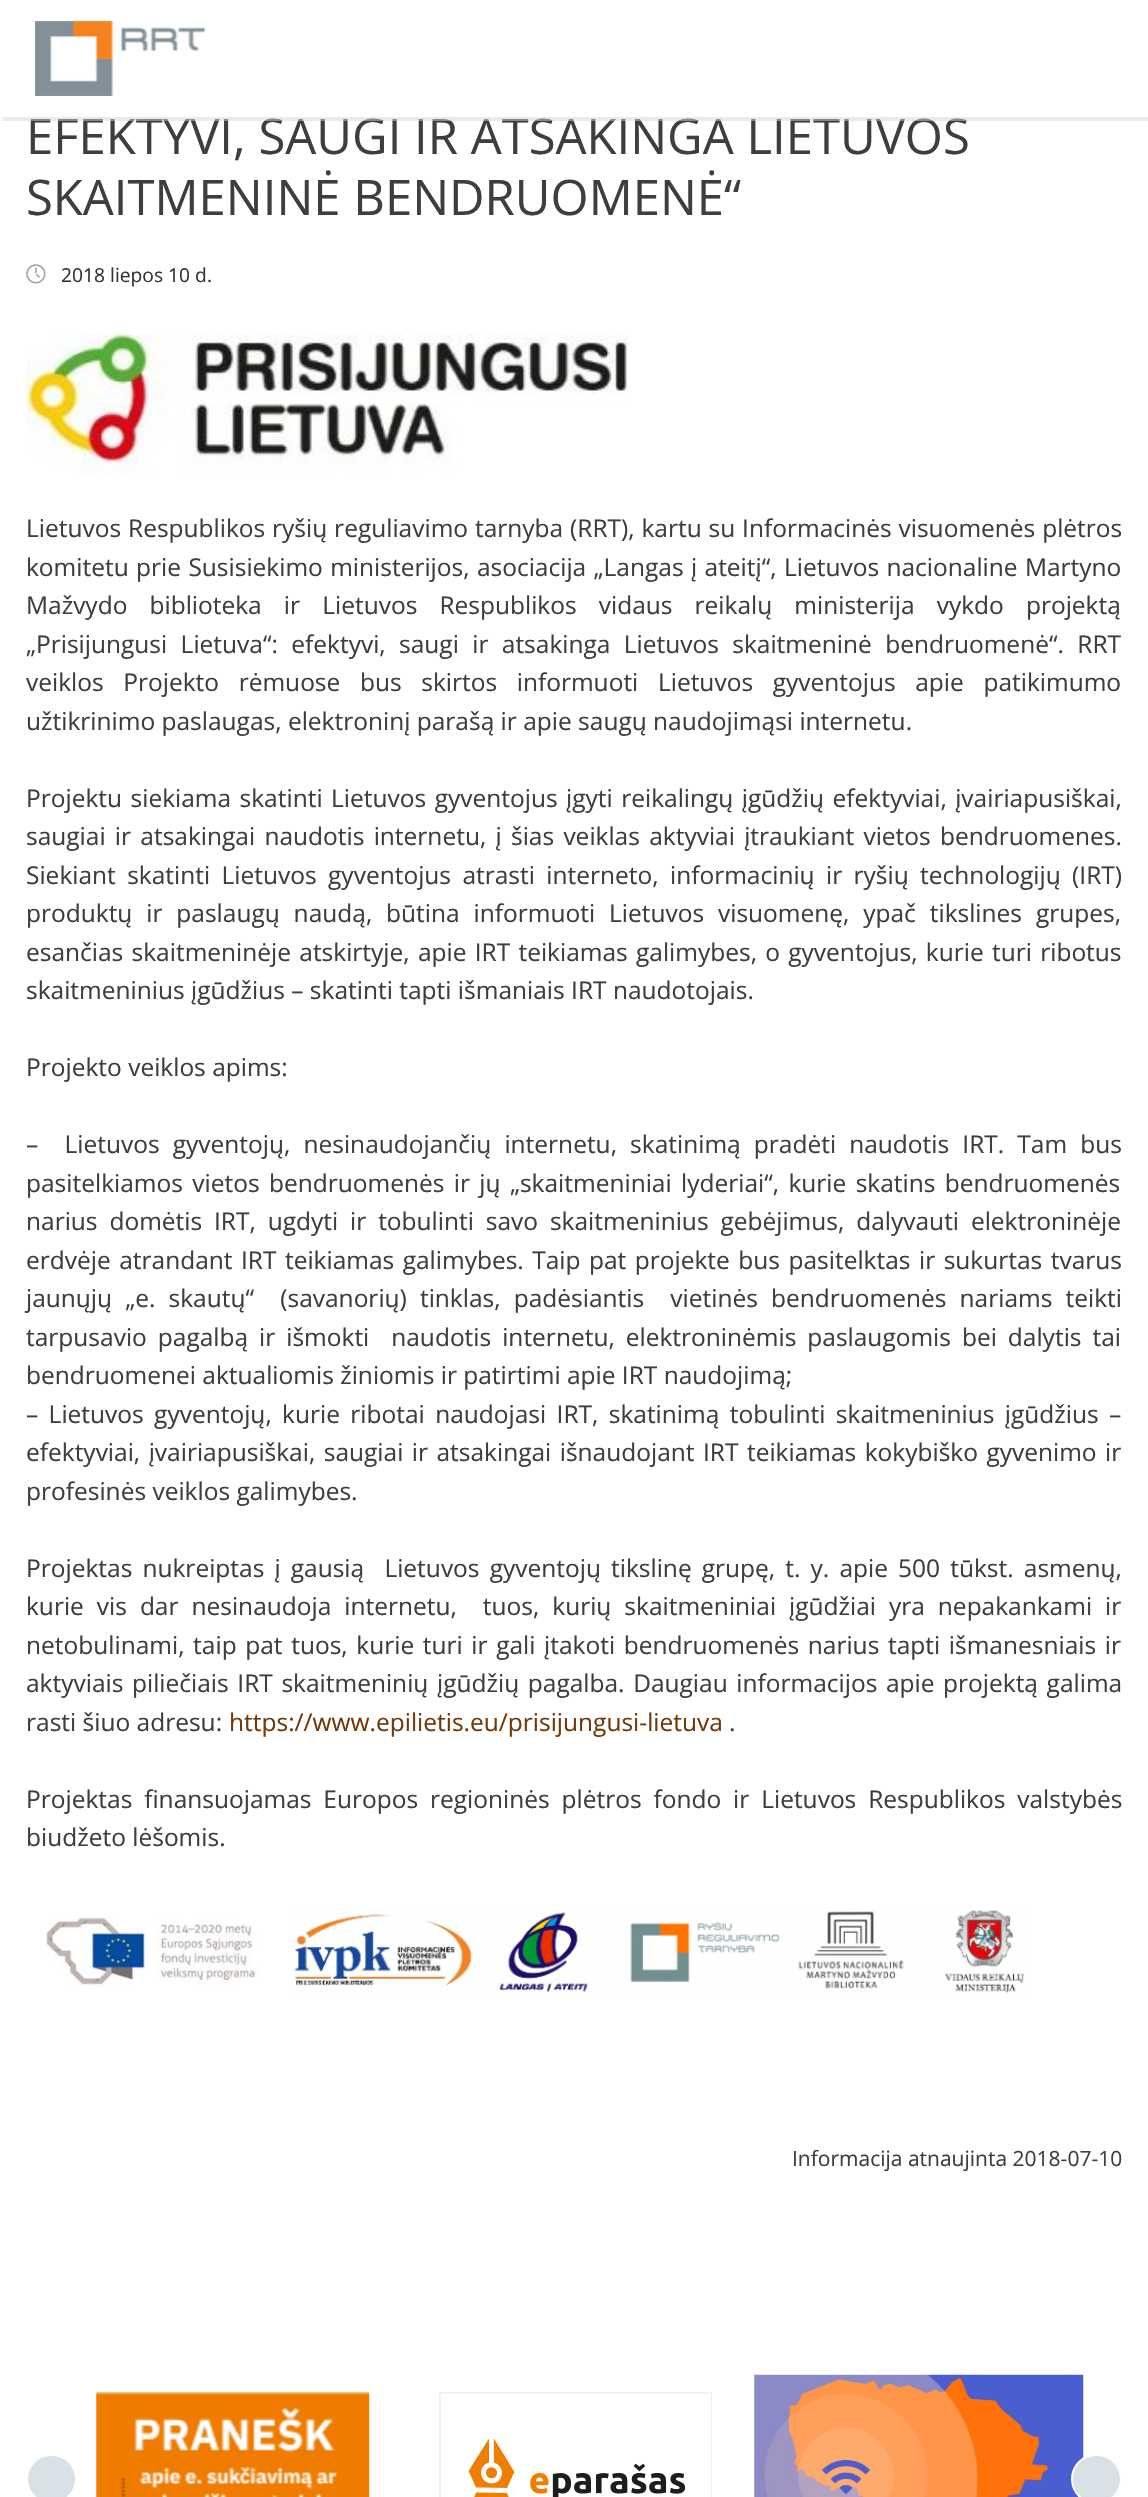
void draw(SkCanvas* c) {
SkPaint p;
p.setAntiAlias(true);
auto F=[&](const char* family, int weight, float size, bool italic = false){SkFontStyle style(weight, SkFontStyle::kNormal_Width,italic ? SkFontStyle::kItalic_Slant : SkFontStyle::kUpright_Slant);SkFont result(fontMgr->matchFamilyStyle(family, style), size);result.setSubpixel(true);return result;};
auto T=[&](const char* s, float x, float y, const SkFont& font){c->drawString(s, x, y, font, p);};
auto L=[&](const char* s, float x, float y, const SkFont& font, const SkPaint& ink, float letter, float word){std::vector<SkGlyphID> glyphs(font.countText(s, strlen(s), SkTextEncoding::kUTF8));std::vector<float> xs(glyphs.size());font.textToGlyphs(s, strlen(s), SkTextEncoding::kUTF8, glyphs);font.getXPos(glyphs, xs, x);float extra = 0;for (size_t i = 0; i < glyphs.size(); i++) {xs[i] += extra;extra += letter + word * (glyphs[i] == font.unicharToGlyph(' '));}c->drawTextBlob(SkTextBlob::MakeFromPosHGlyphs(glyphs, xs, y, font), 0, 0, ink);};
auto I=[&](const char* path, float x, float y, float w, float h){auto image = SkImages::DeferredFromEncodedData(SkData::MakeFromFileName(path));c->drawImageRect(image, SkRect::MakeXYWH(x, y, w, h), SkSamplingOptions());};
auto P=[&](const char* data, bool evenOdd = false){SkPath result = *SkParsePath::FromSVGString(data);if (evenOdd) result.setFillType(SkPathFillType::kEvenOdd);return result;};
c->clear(0xffffffff);
auto f1 = F("Open Sans",400,49);
p.setColor(0xff3e3e3e);
T("EFEKTYVI, SAUGI IR ATSAKINGA LIETUVOS",26,154,f1);
p.setColor(0x7dd4d4d4);
c->drawPath(P("M2 117v4h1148v-117h-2v113z"),p);
I("1.png",35,21,170,75);
p.setColor(0xff3e3e3e);
T("SKAITMENINĖ BENDRUOMENĖ“",26,215,f1);
I("2.png",26,264,20,20);
auto f2 = F("Open Sans",400,19.25);
p.setColor(0xff333333);
T("2018 liepos 10 d.",61,282,f2);
I("3.png",26,334,603,140);
auto f3 = F("Open Sans",400,24.5);
p.setColor(0xff3e3e3e);
L("Lietuvos Respublikos ryšių reguliavimo tarnyba (RRT), kartu su Informacinės visuomenės plėtros",26,537,f3,p,0,.5);
L("komitetu prie Susisiekimo ministerijos, asociacija „Langas į ateitį“, Lietuvos nacionaline Martyno",26,576,f3,p,0,1);
L("Mažvydo biblioteka ir Lietuvos Respublikos vidaus reikalų ministerija vykdo projektą",26,614,f3,p,0,15.75);
L("„Prisijungusi Lietuva“: efektyvi, saugi ir atsakinga Lietuvos skaitmeninė bendruomenė“. RRT",26,653,f3,p,0,7);
L("veiklos Projekto rėmuose bus skirtos informuoti Lietuvos gyventojus apie patikimumo",26,691,f3,p,0,13.25);
T("užtikrinimo paslaugas, elektroninį parašą ir apie saugų naudojimąsi internetu.",26,730,f3);
L("Projektu siekiama skatinti Lietuvos gyventojus įgyti reikalingų įgūdžių efektyviai, įvairiapusiškai,",26,807,f3,p,0,2.1);
L("saugiai ir atsakingai naudotis internetu, į šias veiklas aktyviai įtraukiant vietos bendruomenes.",26,845,f3,p,0,2.9);
L("Siekiant skatinti Lietuvos gyventojus atrasti interneto, informacinių ir ryšių technologijų (IRT)",26,884,f3,p,0,5);
L("produktų ir paslaugų naudą, būtina informuoti Lietuvos visuomenę, ypač tikslines grupes,",26,922,f3,p,0,7.5);
L("esančias skaitmeninėje atskirtyje, apie IRT teikiamas galimybes, o gyventojus, kurie turi ribotus",26,961,f3,p,0,1.9);
T("skaitmeninius įgūdžius – skatinti tapti išmaniais IRT naudotojais.",26,999,f3);
T("Projekto veiklos apims:",26,1076,f3);
L("–  Lietuvos gyventojų, nesinaudojančių internetu, skatinimą pradėti naudotis IRT. Tam bus",26,1153,f3,p,0,6.75);
L("pasitelkiamos vietos bendruomenės ir jų „skaitmeniniai lyderiai“, kurie skatins bendruomenės",26,1192,f3,p,0,3);
L("narius domėtis IRT, ugdyti ir tobulinti savo skaitmeninius gebėjimus, dalyvauti elektroninėje",26,1230,f3,p,0,5.5);
L("erdvėje atrandant IRT teikiamas galimybes. Taip pat projekte bus pasitelktas ir sukurtas tvarus",26,1269,f3,p,0,2.1);
L("jaunųjų „e. skautų“  (savanorių) tinklas, padėsiantis  vietinės bendruomenės nariams teikti",26,1307,f3,p,0,6.75);
L("tarpusavio pagalbą ir išmokti  naudotis internetu, elektroninėmis paslaugomis bei dalytis tai",26,1346,f3,p,0,4.6);
T("bendruomenei aktualiomis žiniomis ir patirtimi apie IRT naudojimą;",26,1384,f3);
L("– Lietuvos gyventojų, kurie ribotai naudojasi IRT, skatinimą tobulinti skaitmeninius įgūdžius –",26,1423,f3,p,0,4);
L("efektyviai, įvairiapusiškai, saugiai ir atsakingai išnaudojant IRT teikiamas kokybiško gyvenimo ir",26,1461,f3,p,0,2.1);
T("profesinės veiklos galimybes.",26,1500,f3);
L("Projektas nukreiptas į gausią  Lietuvos gyventojų tikslinę grupę, t. y. apie 500 tūkst. asmenų,",26,1577,f3,p,0,3.75);
L("kurie vis dar nesinaudoja internetu,  tuos, kurių skaitmeniniai įgūdžiai yra nepakankami ir",26,1615,f3,p,0,6.6);
L("netobulinami, taip pat tuos, kurie turi ir gali įtakoti bendruomenės narius tapti išmanesniais ir",26,1654,f3,p,0,2.25);
L("aktyviais piliečiais IRT skaitmeninių įgūdžių pagalba. Daugiau informacijos apie projektą galima",26,1692,f3,p,0,2.25);
T("rasti šiuo adresu:",26,1731,f3);
p.setColor(0xff723907);
T("https://www.epilietis.eu/prisijungusi-lietuva",229,1731,f3);
p.setColor(0xff3e3e3e);
T(".",729,1731,f3);
L("Projektas finansuojamas Europos regioninės plėtros fondo ir Lietuvos Respublikos valstybės",26,1808,f3,p,0,5.5);
T("biudžeto lėšomis.",26,1846,f3);
I("4.png",46,1917,212,71);
I("5.png",295,1910,730,84);
auto f4 = F("Open Sans",400,21);
T("Informacija atnaujinta 2018-07-10",792,2166,f4);
p.setColor(0xffd8e1e6);
c->drawRoundRect(SkRect::MakeXYWH(27,2455,49,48),24,24,p);
p.setStroke(true);
p.setStrokeWidth(2);
p.setColor(0xffffffff);
c->drawRoundRect(SkRect::MakeXYWH(27,2455,49,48),24,24,p);
I("6.png",96,2392,274,105);
I("7.png",439,2392,273,105);
I("8.png",754,2374,330,123);
p.setStroke(false);
p.setColor(0xffd8e1e6);
c->drawRoundRect(SkRect::MakeXYWH(1072,2455,49,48),24,24,p);
p.setStroke(true);
p.setColor(0xffffffff);
c->drawRoundRect(SkRect::MakeXYWH(1072,2455,49,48),24,24,p);
}
